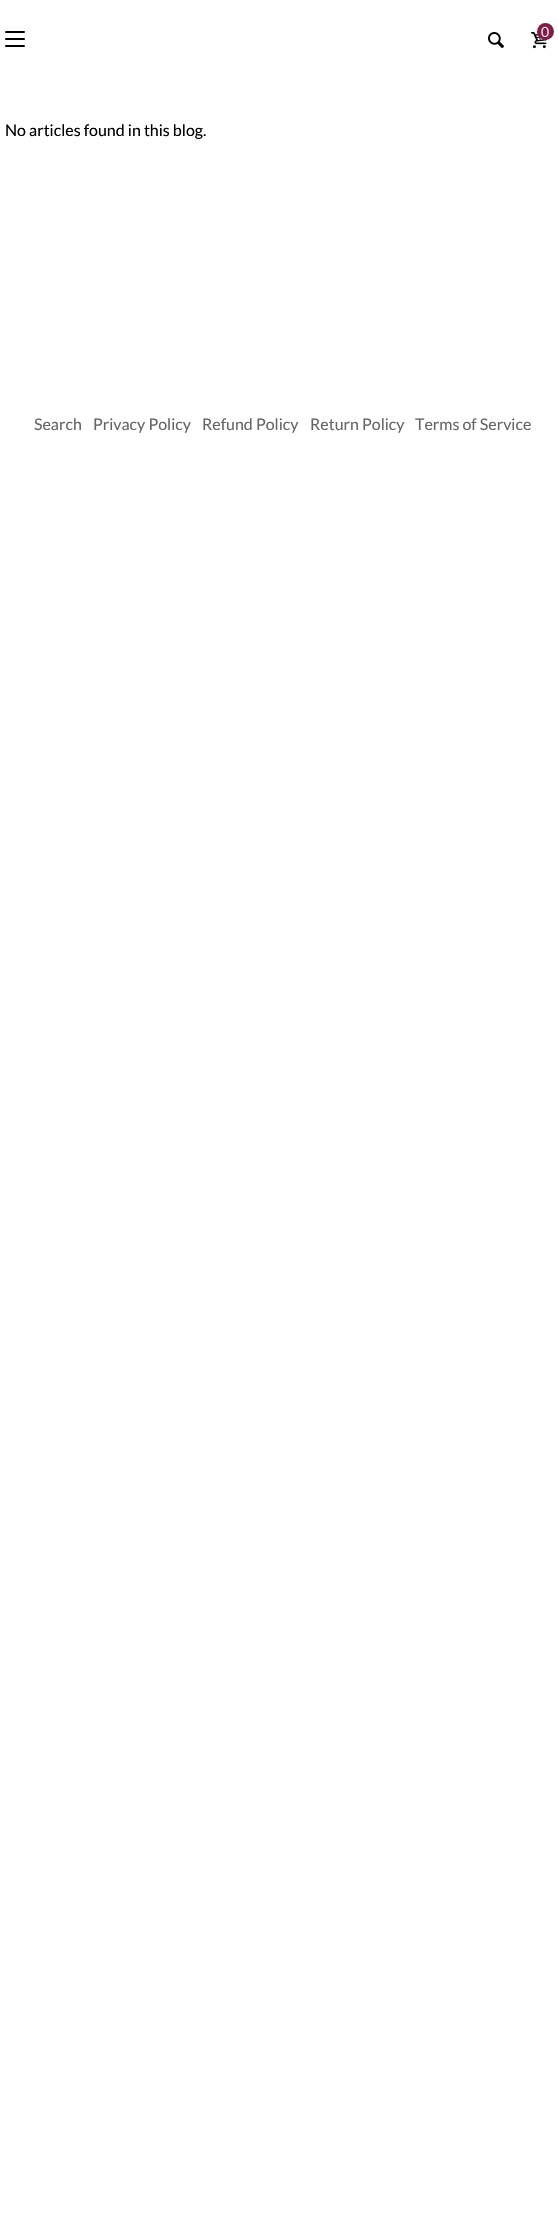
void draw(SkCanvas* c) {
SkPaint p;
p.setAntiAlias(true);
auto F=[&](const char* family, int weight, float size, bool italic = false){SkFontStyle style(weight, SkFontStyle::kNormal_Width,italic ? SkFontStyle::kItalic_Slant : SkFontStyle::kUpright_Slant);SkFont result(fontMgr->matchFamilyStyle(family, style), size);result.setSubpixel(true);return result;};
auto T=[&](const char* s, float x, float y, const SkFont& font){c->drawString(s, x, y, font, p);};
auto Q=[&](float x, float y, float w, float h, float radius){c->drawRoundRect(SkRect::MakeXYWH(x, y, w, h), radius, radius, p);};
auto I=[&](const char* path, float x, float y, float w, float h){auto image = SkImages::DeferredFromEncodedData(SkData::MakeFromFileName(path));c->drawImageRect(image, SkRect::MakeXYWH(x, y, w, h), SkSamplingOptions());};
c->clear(0xffffffff);
p.setColor(0xff000000);
Q(5,31,20,2,1);
Q(5,38,20,2,1);
Q(5,45,20,2,1);
I("1.png",488,32,16,16);
I("2.png",531,32,16,17);
p.setColor(0xff7e1d4a);
c->drawCircle(545.5,31.5,8.5,p);
auto f1 = F("Lato",400,14);
p.setColor(0xfff1dede);
T("0",541,37,f1);
auto f2 = F("Lato",400,16);
p.setColor(0xff000000);
T("No articles found in this blog.",5,136,f2);
p.setColor(0xff646565);
T("Search",34,430,f2);
T("Privacy Policy",93,430,f2);
T("Refund Policy",202,430,f2);
T("Return Policy",310,430,f2);
T("Terms of Service",415,430,f2);
}
